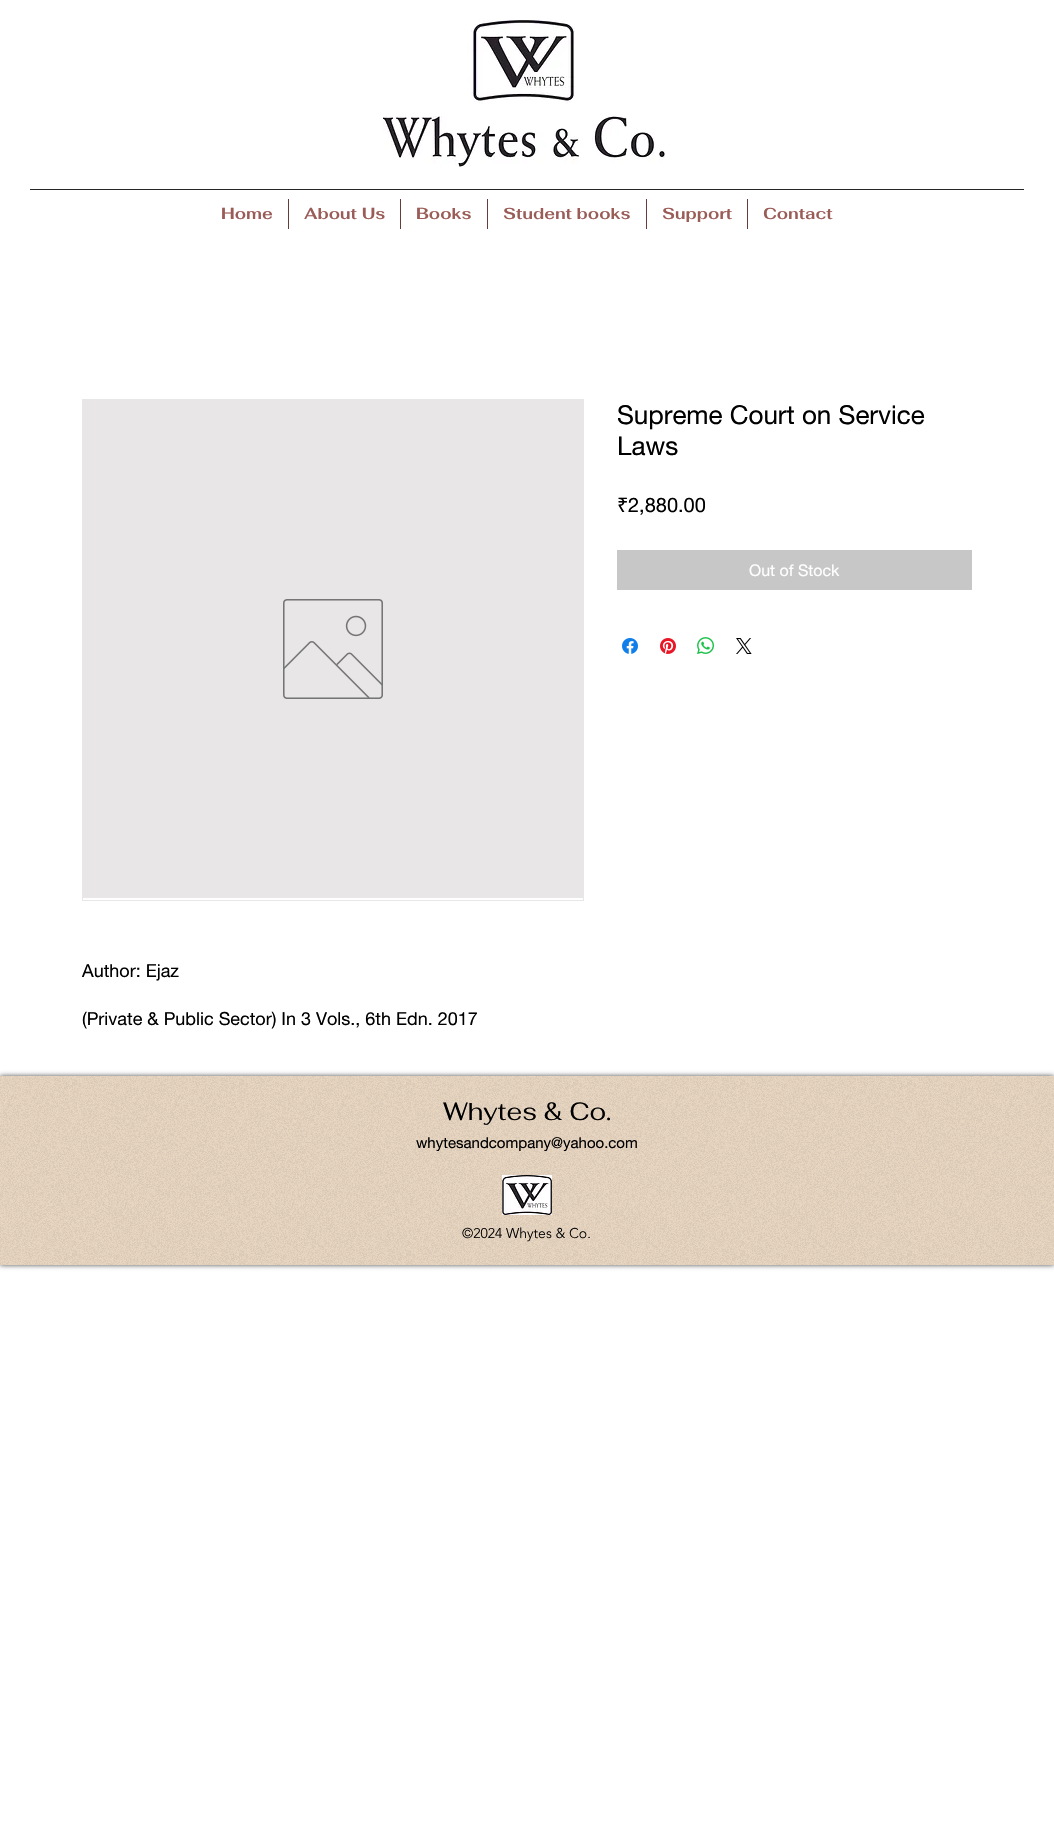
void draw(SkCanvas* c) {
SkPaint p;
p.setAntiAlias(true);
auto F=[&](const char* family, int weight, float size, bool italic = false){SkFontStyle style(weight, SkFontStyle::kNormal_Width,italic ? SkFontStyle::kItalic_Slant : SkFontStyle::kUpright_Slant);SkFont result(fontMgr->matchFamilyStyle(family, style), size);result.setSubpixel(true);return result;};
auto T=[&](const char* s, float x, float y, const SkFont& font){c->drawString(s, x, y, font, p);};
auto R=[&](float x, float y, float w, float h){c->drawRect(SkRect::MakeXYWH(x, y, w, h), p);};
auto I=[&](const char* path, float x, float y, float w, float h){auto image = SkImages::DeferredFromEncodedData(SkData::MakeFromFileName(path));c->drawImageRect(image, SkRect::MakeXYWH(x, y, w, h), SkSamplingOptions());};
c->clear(0xffffffff);
I("1.png",383,20,282,147);
p.setColor(0xff262626);
R(30,189,994,1);
auto f1 = F("Fahkwang",700,16);
p.setColor(0xff9a5c57);
T("Home",221,219,f1);
p.setColor(0xff673d3a);
R(288,199,1,30);
p.setColor(0xff9a5c57);
T("About Us",304,219,f1);
p.setColor(0xff673d3a);
R(400,199,1,30);
p.setColor(0xff9a5c57);
T("Books",416,219,f1);
p.setColor(0xff673d3a);
R(487,199,1,30);
p.setColor(0xff9a5c57);
T("Student books",503,219,f1);
p.setColor(0xff673d3a);
R(646,199,1,30);
p.setColor(0xff9a5c57);
T("Support",662,219,f1);
p.setColor(0xff673d3a);
R(747,199,1,30);
p.setColor(0xff9a5c57);
T("Contact",763,219,f1);
auto f2 = F("helvetica neue",400,26);
p.setColor(0xff000000);
T("Supreme Court on Service",617,424,f2);
T("Laws",617,455,f2);
auto f3 = F("Noto Sans",400,20);
T("₹",617,512,f3);
auto f4 = F("helvetica neue",400,20);
T("2,880.00",628,512,f4);
p.setColor(0xffc7c7c7);
R(617,550,355,40);
auto f5 = F("helvetica neue",400,16);
p.setColor(0xffffffff);
T("Out of Stock",749,576,f5);
I("2.png",622,638,16,16);
I("3.png",660,638,16,16);
I("4.png",697,637,17,17);
I("5.png",736,638,16,16);
p.setStroke(true);
p.setStrokeWidth(1);
p.setColor(0xffe8e6e6);
c->drawRect(SkRect::MakeXYWH(82.5,399.5,501,501),p);
p.setStroke(false);
R(83,400,500,498);
I("6.png",283,599,100,100);
auto f6 = F("helvetica neue",400,18);
p.setColor(0xff000000);
T("Author: Ejaz",82,977,f6);
T("(Private & Public Sector) In 3 Vols., 6th Edn. 2017",82,1025,f6);
p.setColor(0xb3000000);
p.setMaskFilter(SkMaskFilter::MakeBlur(kNormal_SkBlurStyle, 2.5));
c->drawRect(SkRect::MakeXYWH(0,1076,1054,189),p);
p.setMaskFilter(nullptr);
p.setColor(0xffe8d6c1);
R(0,1076,1054,189);
I("7.png",0,1076,1054,189);
auto f7 = F("Fahkwang",400,25);
p.setColor(0xff000000);
T("Whytes & Co.",443,1120,f7);
auto f8 = F("helvetica neue",400,15);
T("whytesandcompany@yahoo.com",416,1148,f8);
I("8.png",502,1175,50,40);
auto f9 = F("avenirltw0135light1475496",300,14);
T("©2024 Whytes & Co.",462,1238,f9);
}
